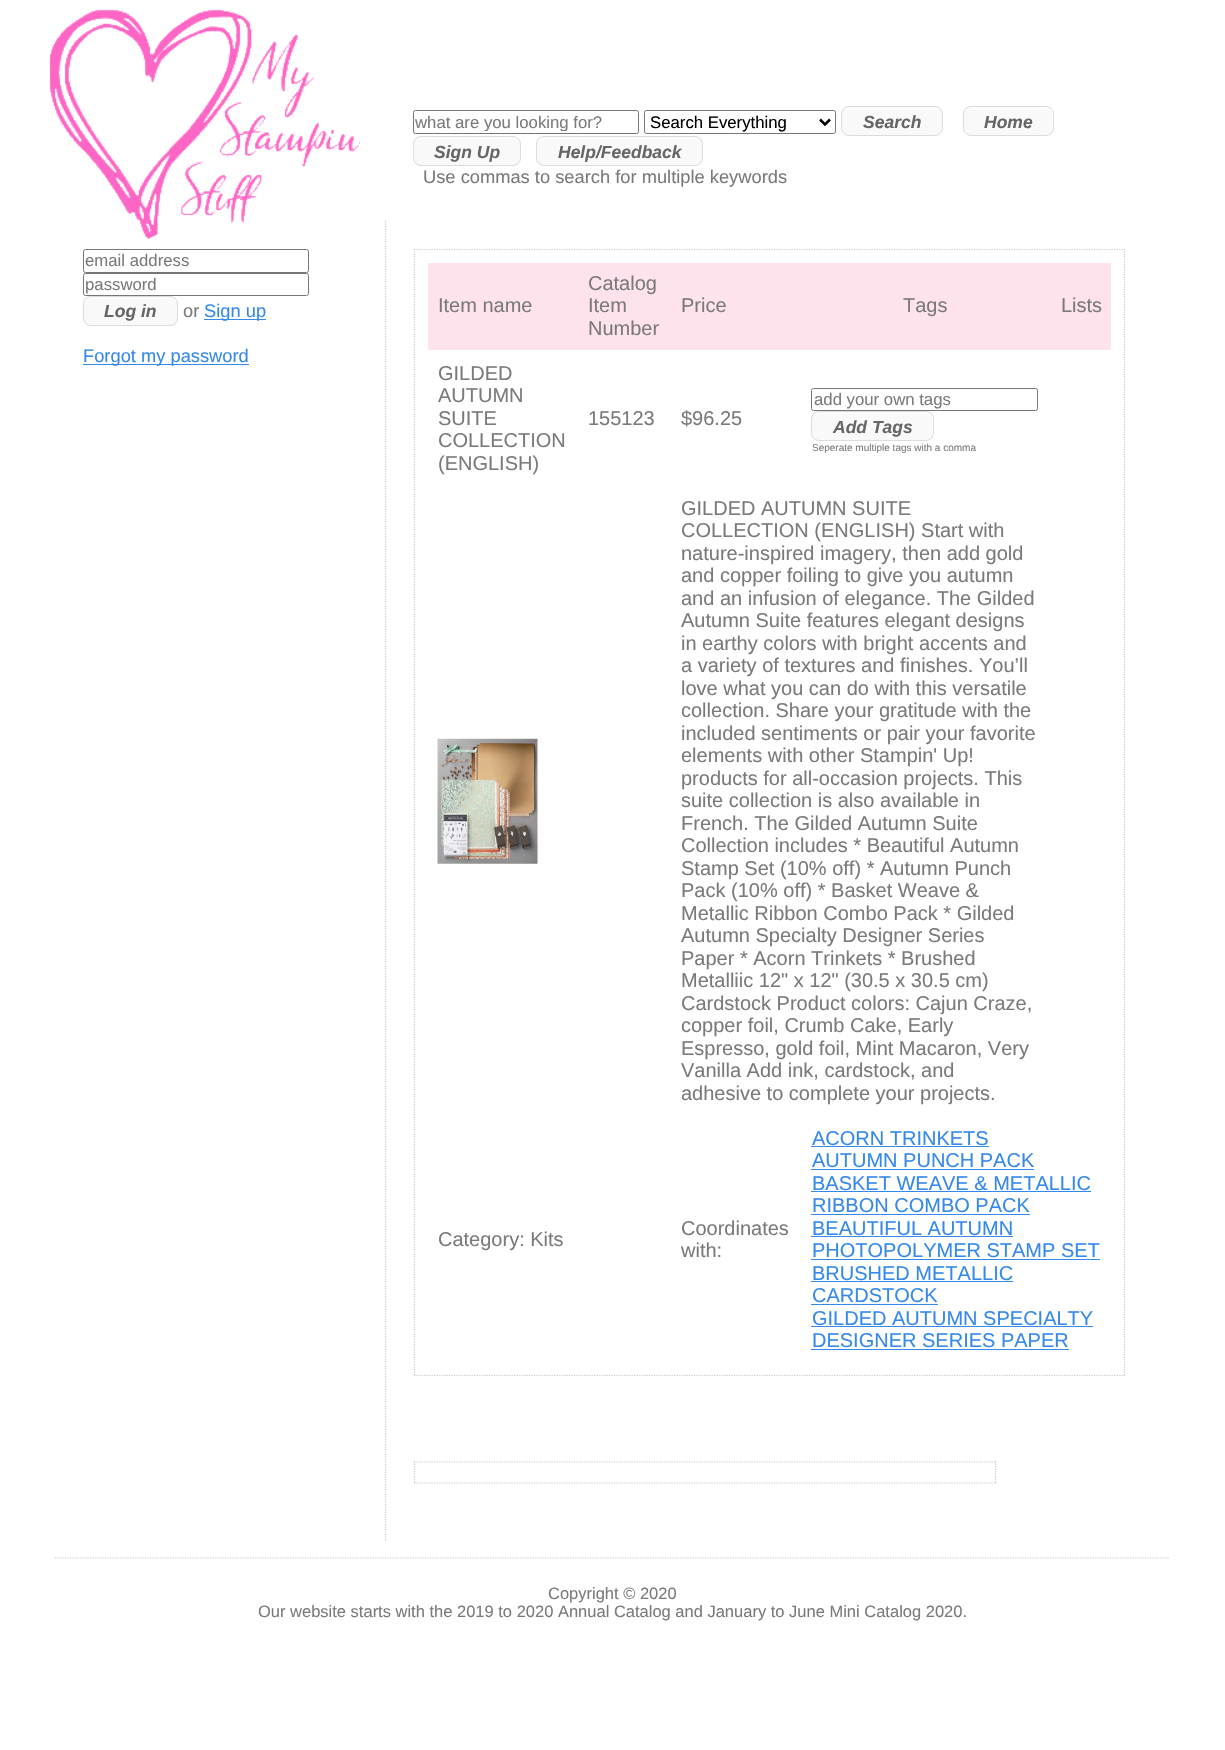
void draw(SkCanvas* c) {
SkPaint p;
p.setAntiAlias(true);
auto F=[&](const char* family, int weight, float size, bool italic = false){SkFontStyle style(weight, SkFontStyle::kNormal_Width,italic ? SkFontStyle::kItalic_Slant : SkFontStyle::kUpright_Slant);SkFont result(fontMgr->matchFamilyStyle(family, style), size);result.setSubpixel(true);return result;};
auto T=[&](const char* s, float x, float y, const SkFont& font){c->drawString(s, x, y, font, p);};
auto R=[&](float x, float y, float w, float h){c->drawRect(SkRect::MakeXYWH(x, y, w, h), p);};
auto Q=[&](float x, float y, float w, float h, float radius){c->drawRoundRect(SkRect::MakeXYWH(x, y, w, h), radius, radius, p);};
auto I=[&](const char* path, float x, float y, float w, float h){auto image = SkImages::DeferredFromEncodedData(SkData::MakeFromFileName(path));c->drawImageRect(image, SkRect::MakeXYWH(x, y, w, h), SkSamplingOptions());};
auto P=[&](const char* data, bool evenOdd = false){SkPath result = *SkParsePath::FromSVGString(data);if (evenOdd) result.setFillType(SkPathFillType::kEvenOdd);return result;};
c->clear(0xffffffff);
I("1.png",49,9,312,230);
p.setStroke(true);
p.setStrokeWidth(1);
p.setColor(0xff767676);
c->drawRoundRect(SkRect::MakeXYWH(413.5,110.5,225,23),2,2,p);
c->save();
c->clipRect(SkRect::MakeXYWH(415,113,221,18));
auto f1 = F("Liberation Sans",400,16.75);
p.setStroke(false);
p.setColor(0xff7a7a7a);
T("what are you looking for?",415,128,f1);
c->restore();
p.setStroke(true);
p.setColor(0xff767676);
c->drawRoundRect(SkRect::MakeXYWH(644.5,110.5,191,23),2,2,p);
p.setStrokeWidth(2.5);
p.setColor(0xff000000);
c->drawPath(P("M820 119.5l5 5l5-5"),p);
p.setStroke(false);
T("Search Everything",650,128,f1);
p.setColor(0xfff9f9f9);
Q(841,106,102,30,8);
p.setColor(0xffffffff);
c->drawPath(P("M849 109h86c3 0 6 3 6 6v-1c0-3-3-6-6-6h-86c-2 0-4 1-5 3c1-1 3-2 5-2z"),p);
p.setStroke(true);
p.setStrokeWidth(1);
p.setColor(0xffdcdcdc);
c->drawRoundRect(SkRect::MakeXYWH(841.5,106.5,101,29),7.5,7.5,p);
auto f2 = F("Liberation Sans",700,17.5,true);
p.setStroke(false);
p.setColor(0xff666666);
T("Search",863,128,f2);
p.setColor(0xfff9f9f9);
Q(963,106,91,30,8);
p.setColor(0xffffffff);
c->drawPath(P("M970 109h76c4 0 6 3 6 6v15c0 1 0 2-1 3c3-2 2-8 2-11c0-17-2-14-19-14h-51c-7 0-19-3-19 7c0-3 3-6 6-6z"),p);
p.setStroke(true);
p.setColor(0xffdcdcdc);
c->drawRoundRect(SkRect::MakeXYWH(963.5,106.5,90,29),7.5,7.5,p);
p.setStroke(false);
p.setColor(0xff666666);
T("Home",984,128,f2);
p.setColor(0xfff9f9f9);
Q(413,136,108,30,8);
p.setColor(0xffffffff);
c->drawPath(P("M420 139h94c3 0 6 3 6 6c0-11-15-7-22-7h-62c-7 0-22-4-22 7c0-3 3-6 6-6z"),p);
p.setStroke(true);
p.setColor(0xffdcdcdc);
c->drawRoundRect(SkRect::MakeXYWH(413.5,136.5,107,29),7.5,7.5,p);
p.setStroke(false);
p.setColor(0xff666666);
T("Sign Up",434,158,f2);
p.setColor(0xfff9f9f9);
Q(536,136,167,30,8);
p.setColor(0xffffffff);
c->drawPath(P("M544 139h151c3 0 6 3 6 6v-1c0-3-3-6-6-6h-151c-3 0-6 3-6 6v1c0-3 2-6 6-6z"),p);
p.setStroke(true);
p.setColor(0xffdcdcdc);
c->drawRoundRect(SkRect::MakeXYWH(536.5,136.5,166,29),7.5,7.5,p);
p.setStroke(false);
p.setColor(0xff666666);
T("Help/Feedback",558,158,f2);
auto f3 = F("Liberation Sans",400,18.3);
p.setColor(0xff7a7a7a);
T("Use commas to search for multiple keywords",423,183,f3);
p.setStroke(true);
p.setColor(0xff767676);
c->drawRoundRect(SkRect::MakeXYWH(83.5,249.5,225,23),2,2,p);
p.setStroke(false);
p.setColor(0xff7a7a7a);
T("email address",85,266,f1);
p.setStroke(true);
p.setColor(0xff767676);
c->drawRoundRect(SkRect::MakeXYWH(83.5,273.5,225,22),2,2,p);
p.setStroke(false);
p.setColor(0xff7a7a7a);
T("password",85,290,f1);
p.setColor(0xfff9f9f9);
Q(83,296,95,30,8);
p.setColor(0xffffffff);
c->drawPath(P("M90 299h80c3 0 6 3 6 6c0-10-13-7-19-7h-54c-6 0-19-3-19 7c0-3 3-6 6-6z"),p);
p.setStroke(true);
p.setColor(0xffdcdcdc);
c->drawRoundRect(SkRect::MakeXYWH(83.5,296.5,94,29),7.5,7.5,p);
p.setStroke(false);
p.setColor(0xff666666);
T("Log in",104,317,f2);
p.setColor(0xff7a7a7a);
T("or",183,317,f3);
p.setColor(0xff3489eb);
R(204,319,62,1);
T("Sign up",204,317,f3);
R(83,364,166,1);
T("Forgot my password",83,362,f3);
p.setStroke(true);
p.setStrokeWidth(1.2);
p.setColor(0xffcacaca);
p.setPathEffect(SkDashPathEffect::Make({{1.25f,1.25f}}, 0));
c->drawPath(P("M385.5 221v1213"),p);
p.setPathEffect(nullptr);
p.setPathEffect(SkDashPathEffect::Make({{1.25f,1.25f}}, 0));
c->drawPath(P("M414 249.5h711"),p);
p.setPathEffect(nullptr);
p.setPathEffect(SkDashPathEffect::Make({{1.25f,1.25f}}, 0));
c->drawPath(P("M1124.5 249v1127"),p);
p.setPathEffect(nullptr);
p.setPathEffect(SkDashPathEffect::Make({{1.25f,1.25f}}, 0));
c->drawPath(P("M414 1375.5h711"),p);
p.setPathEffect(nullptr);
p.setPathEffect(SkDashPathEffect::Make({{1.25f,1.25f}}, 0));
c->drawPath(P("M414.5 249v1127"),p);
p.setPathEffect(nullptr);
p.setStroke(false);
p.setColor(0xfffee3ed);
R(428,263,683,87);
auto f4 = F("Liberation Sans",400,20);
p.setColor(0xff7a7a7a);
T("Item name",438,312,f4);
T("Catalog",588,290,f4);
T("Item",588,312,f4);
T("Number",588,335,f4);
T("Price",681,312,f4);
T("Tags",903,312,f4);
T("Lists",1061,312,f4);
T("GILDED",438,380,f4);
T("AUTUMN",438,402,f4);
T("SUITE",438,425,f4);
T("COLLECTION",438,447,f4);
T("(ENGLISH)",438,470,f4);
T("155123",588,425,f4);
T("$96.25",681,425,f4);
p.setStroke(true);
p.setStrokeWidth(1);
p.setColor(0xff767676);
c->drawRoundRect(SkRect::MakeXYWH(811.5,388.5,226,22),2,2,p);
p.setStroke(false);
p.setColor(0xff7a7a7a);
T("add your own tags",814,405,f1);
p.setColor(0xfff9f9f9);
Q(811,411,123,30,8);
p.setColor(0xffffffff);
c->drawPath(P("M819 414h107c4 0 6 3 6 6v15c0 1 0 2-1 3c1-1 2-2 2-4v-15c0-3-3-6-6-6h-108c-2 0-4 1-5 3c1-1 3-2 5-2z"),p);
p.setStroke(true);
p.setColor(0xffdcdcdc);
c->drawRoundRect(SkRect::MakeXYWH(811.5,411.5,122,29),7.5,7.5,p);
p.setStroke(false);
p.setColor(0xff666666);
T("Add Tags",833,433,f2);
auto f5 = F("Liberation Sans",400,10);
p.setColor(0xff7a7a7a);
T("Seperate multiple tags with a comma",812,451,f5);
I("2.png",437,738,101,126);
T("GILDED AUTUMN SUITE",681,515,f4);
T("COLLECTION (ENGLISH) Start with",681,537,f4);
T("nature-inspired imagery, then add gold",681,560,f4);
T("and copper foiling to give you autumn",681,582,f4);
T("and an infusion of elegance. The Gilded",681,605,f4);
T("Autumn Suite features elegant designs",681,627,f4);
T("in earthy colors with bright accents and",681,650,f4);
T("a variety of textures and finishes. You’ll",681,672,f4);
T("love what you can do with this versatile",681,695,f4);
T("collection. Share your gratitude with the",681,717,f4);
T("included sentiments or pair your favorite",681,740,f4);
T("elements with other Stampin' Up!",681,762,f4);
T("products for all-occasion projects. This",681,785,f4);
T("suite collection is also available in",681,807,f4);
T("French. The Gilded Autumn Suite",681,830,f4);
T("Collection includes * Beautiful Autumn",681,852,f4);
T("Stamp Set (10% off) * Autumn Punch",681,875,f4);
T("Pack (10% off) * Basket Weave &",681,897,f4);
T("Metallic Ribbon Combo Pack * Gilded",681,920,f4);
T("Autumn Specialty Designer Series",681,942,f4);
T("Paper * Acorn Trinkets * Brushed",681,965,f4);
T("Metalliic 12\" x 12\" (30.5 x 30.5 cm)",681,987,f4);
T("Cardstock Product colors: Cajun Craze,",681,1010,f4);
T("copper foil, Crumb Cake, Early",681,1032,f4);
T("Espresso, gold foil, Mint Macaron, Very",681,1055,f4);
T("Vanilla Add ink, cardstock, and",681,1077,f4);
T("adhesive to complete your projects.",681,1100,f4);
T("Category: Kits",438,1246,f4);
T("Coordinates",681,1235,f4);
T("with:",681,1257,f4);
p.setColor(0xff3489eb);
T("ACORN TRINKETS",812,1145,f4);
R(811,1146,178,1);
T("AUTUMN PUNCH PACK",812,1167,f4);
R(811,1169,223,1);
T("BASKET WEAVE & METALLIC",812,1190,f4);
R(811,1191,280,1);
T("RIBBON COMBO PACK",812,1212,f4);
R(811,1214,219,1);
T("BEAUTIFUL AUTUMN",812,1235,f4);
R(811,1236,202,1);
T("PHOTOPOLYMER STAMP SET",812,1257,f4);
R(811,1259,289,1);
T("BRUSHED METALLIC",812,1280,f4);
R(811,1281,202,1);
T("CARDSTOCK",812,1302,f4);
R(811,1304,127,1);
T("GILDED AUTUMN SPECIALTY",812,1325,f4);
R(811,1326,282,1);
T("DESIGNER SERIES PAPER",812,1347,f4);
R(811,1349,258,1);
p.setStroke(true);
p.setStrokeWidth(1.2);
p.setColor(0xffcacaca);
p.setPathEffect(SkDashPathEffect::Make({{1.25f,1.25f}}, 0));
c->drawPath(P("M385.5 1434v107"),p);
p.setPathEffect(nullptr);
p.setPathEffect(SkDashPathEffect::Make({{1.25f,1.25f}}, 0));
c->drawPath(P("M414 1462h582"),p);
p.setPathEffect(nullptr);
p.setPathEffect(SkDashPathEffect::Make({{1.25f,1.25f}}, 0));
c->drawPath(P("M995.5 1461v23"),p);
p.setPathEffect(nullptr);
p.setPathEffect(SkDashPathEffect::Make({{1.25f,1.25f}}, 0));
c->drawPath(P("M414 1483h582"),p);
p.setPathEffect(nullptr);
p.setPathEffect(SkDashPathEffect::Make({{1.25f,1.25f}}, 0));
c->drawPath(P("M414.5 1461v23"),p);
p.setPathEffect(nullptr);
p.setPathEffect(SkDashPathEffect::Make({{1.25f,1.25f}}, 0));
c->drawPath(P("M55 1558h1115"),p);
p.setPathEffect(nullptr);
auto f6 = F("Liberation Sans",400,16.5);
p.setStroke(false);
p.setColor(0xff7a7a7a);
T("Copyright © 2020",548,1599,f6);
T("Our website starts with the 2019 to 2020 Annual Catalog and January to June Mini Catalog 2020.",258,1617,f6);
}
